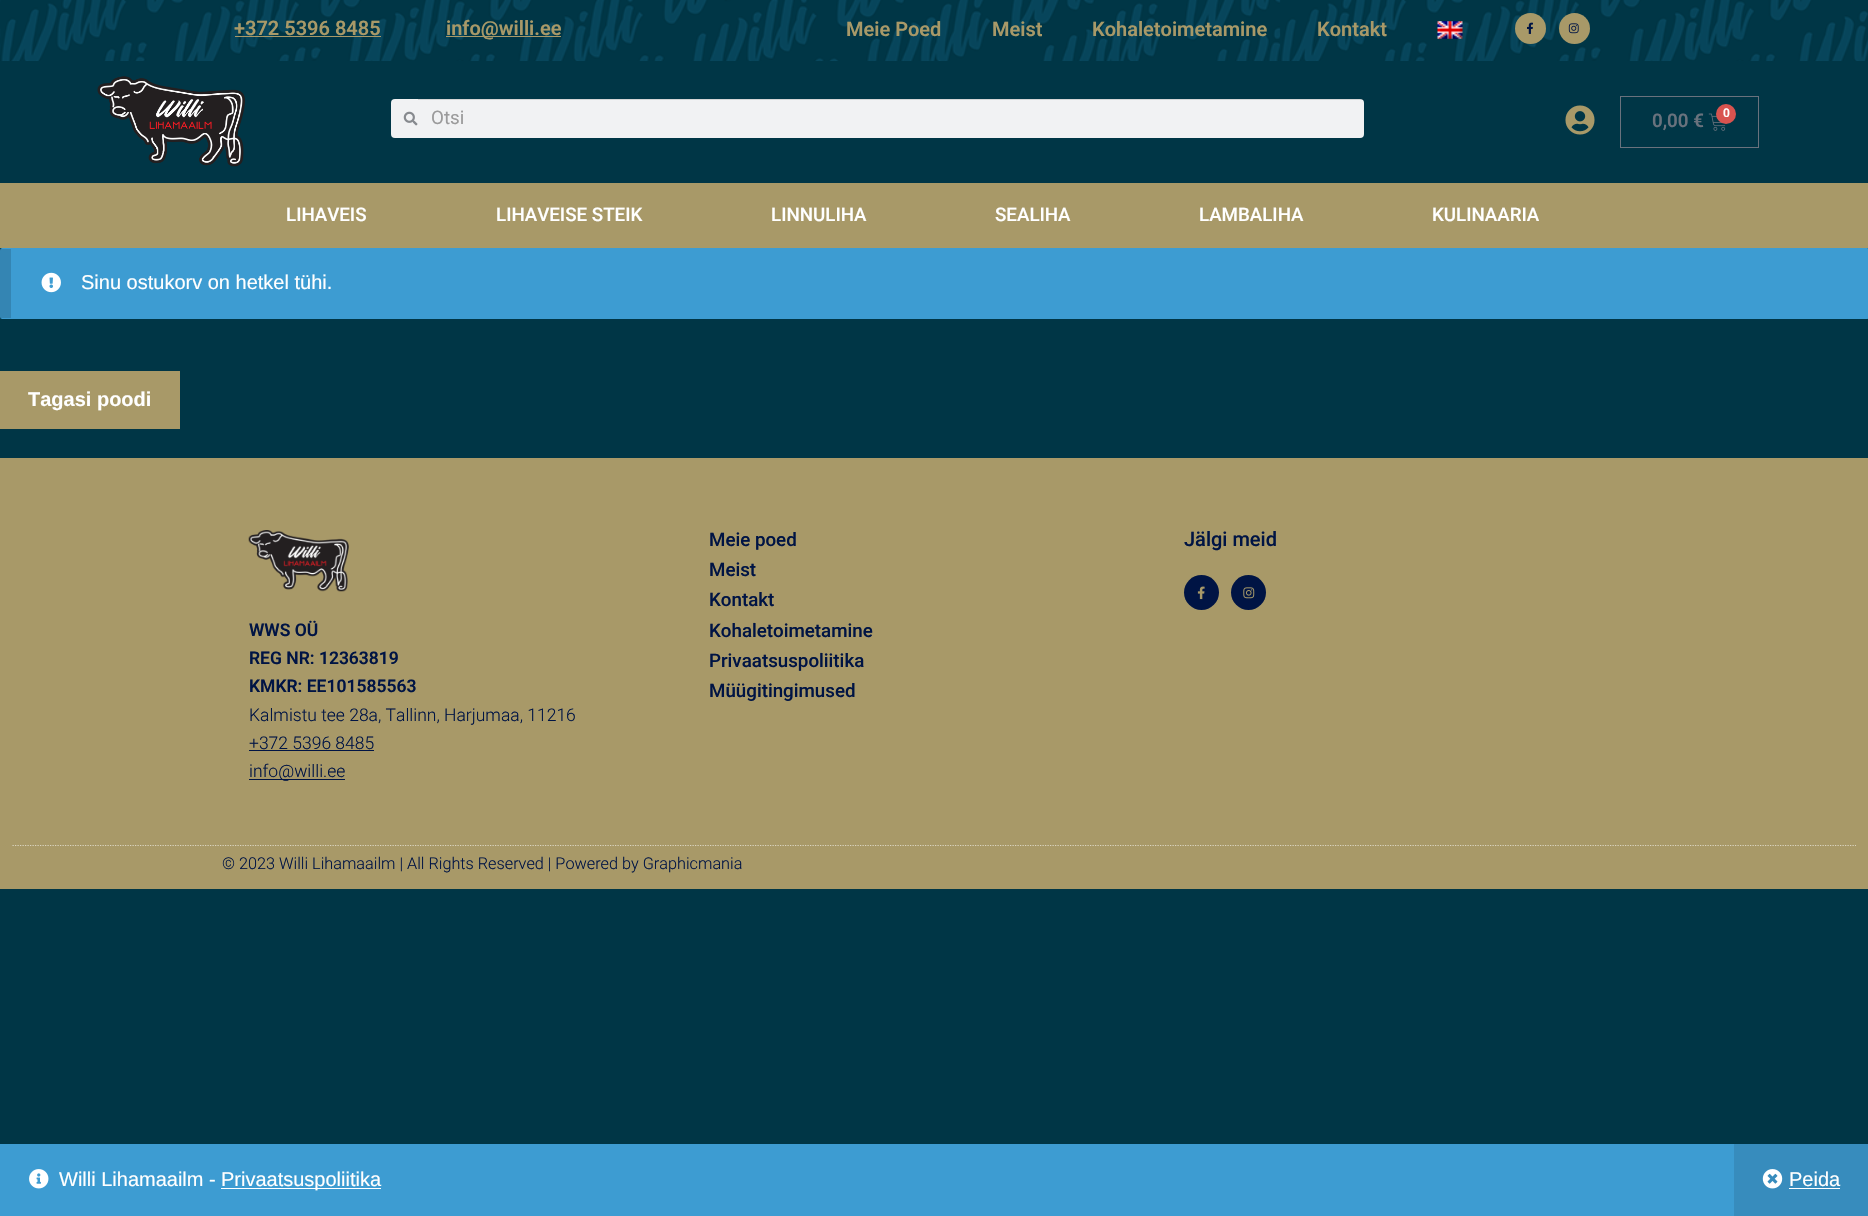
void draw(SkCanvas* c) {
SkPaint p;
p.setAntiAlias(true);
auto F=[&](const char* family, int weight, float size, bool italic = false){SkFontStyle style(weight, SkFontStyle::kNormal_Width,italic ? SkFontStyle::kItalic_Slant : SkFontStyle::kUpright_Slant);SkFont result(fontMgr->matchFamilyStyle(family, style), size);result.setSubpixel(true);return result;};
auto T=[&](const char* s, float x, float y, const SkFont& font){c->drawString(s, x, y, font, p);};
auto R=[&](float x, float y, float w, float h){c->drawRect(SkRect::MakeXYWH(x, y, w, h), p);};
auto Q=[&](float x, float y, float w, float h, float radius){c->drawRoundRect(SkRect::MakeXYWH(x, y, w, h), radius, radius, p);};
auto I=[&](const char* path, float x, float y, float w, float h){auto image = SkImages::DeferredFromEncodedData(SkData::MakeFromFileName(path));c->drawImageRect(image, SkRect::MakeXYWH(x, y, w, h), SkSamplingOptions());};
auto P=[&](const char* data, bool evenOdd = false){SkPath result = *SkParsePath::FromSVGString(data);if (evenOdd) result.setFillType(SkPathFillType::kEvenOdd);return result;};
c->clear(0xff003646);
I("1.png",0,0,1868,61);
auto f1 = F("Roboto",600,20);
p.setColor(0xffa89968);
T("+372 5396 8485",234,35,f1);
R(235,36,146,1);
R(446,36,115,1);
T("info@willi.ee",446,35,f1);
T("Meie Poed",846,36,f1);
T("Meist",992,36,f1);
T("Kohaletoimetamine",1092,36,f1);
T("Kontakt",1317,36,f1);
I("2.png",1437,21,26,18);
c->drawCircle(1530.5,28.5,15.5,p);
I("3.png",1527,22,6,12);
c->drawCircle(1574.5,28.5,15.5,p);
I("4.png",1568,23,11,11);
I("5.png",97,76,148,91);
p.setColor(0xfff1f2f3);
Q(391,99,973,39,4);
I("6.png",403,111,15,15);
p.setColor(0x1f000000);
R(418,99,946,1);
auto f2 = F("Roboto",400,18.75);
p.setColor(0xff9b9b9b);
T("Otsi",431,124,f2);
I("7.png",1565,105,30,30);
p.setStroke(true);
p.setStrokeWidth(1);
p.setColor(0xff69727d);
c->drawRect(SkRect::MakeXYWH(1620.5,96.5,138,51),p);
auto f3 = F("Roboto",600,18.75);
p.setStroke(false);
T("0,00 €",1652,127,f3);
I("8.png",1708,113,18,18);
p.setColor(0xffd9534f);
c->drawCircle(1726,114,10,p);
auto f4 = F("Roboto",600,12);
p.setColor(0xffffffff);
T("0",1723,117,f4);
p.setColor(0xffa89968);
R(0,183,1868,65);
auto f5 = F("Roboto",500,18.75);
p.setColor(0xffffffff);
T("LIHAVEIS",286,221,f5);
T("LIHAVEISE STEIK",496,221,f5);
T("LINNULIHA",771,221,f5);
T("SEALIHA",995,221,f5);
T("LAMBALIHA",1199,221,f5);
T("KULINAARIA",1432,221,f5);
p.setColor(0xff3d9cd2);
Q(0,248,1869,71,2.5);
p.setColor(0x26000000);
R(0,249,11,69);
I("9.png",41,272,20,21);
auto f6 = F("Liberation Sans",400,20);
p.setColor(0xffffffff);
T("Sinu ostukorv on hetkel tühi.",81,289,f6);
p.setColor(0xffa89968);
R(0,371,180,58);
auto f7 = F("Liberation Sans",700,20);
p.setColor(0xffffffff);
T("Tagasi poodi",28,406,f7);
p.setColor(0xffa89968);
R(0,458,1868,431);
p.setColor(0xff001444);
T("Meie poed",709,546,f5);
T("Meist",709,576,f5);
T("Kontakt",709,606,f5);
T("Kohaletoimetamine",709,637,f5);
T("Privaatsuspoliitika",709,667,f5);
T("Müügitingimused",709,697,f5);
auto f8 = F("Roboto",500,20);
T("Jälgi meid",1184,546,f8);
c->drawCircle(1201.5,592.5,17.5,p);
I("10.png",1197,586,8,14);
c->drawCircle(1248.5,592.5,17.5,p);
I("11.png",1243,587,12,12);
I("12.png",248,530,101,62);
auto f9 = F("Roboto",600,17.5);
T("WWS OÜ",249,636,f9);
T("REG NR: 12363819",249,664,f9);
T("KMKR: EE101585563",249,692,f9);
auto f10 = F("Roboto",300,17.5);
T("Kalmistu tee 28a, Tallinn, Harjumaa, 11216",249,721,f10);
T("+372 5396 8485",249,749,f10);
R(249,750,125,1);
R(249,779,96,1);
T("info@willi.ee",249,777,f10);
p.setStroke(true);
p.setStrokeWidth(1.2);
p.setColor(0xffdbd5c1);
p.setPathEffect(SkDashPathEffect::Make({{1.25f,1.25f}}, 0));
c->drawPath(P("M12.5 845.5h1843.5"),p);
p.setPathEffect(nullptr);
auto f11 = F("Roboto",300,16.25);
p.setStroke(false);
p.setColor(0xff001444);
T("© 2023 Willi Lihamaailm | All Rights Reserved | Powered by Graphicmania",222,869,f11);
p.setColor(0xff3d9cd2);
R(0,1144,1734,72);
I("13.png",29,1169,20,20);
p.setColor(0xffffffff);
T("Willi Lihamaailm -",59,1186,f6);
R(221,1188,160,1);
T("Privaatsuspoliitika",221,1186,f6);
p.setColor(0xff378cbd);
R(1734,1144,134,72);
I("14.png",1762,1169,21,20);
p.setColor(0xffffffff);
T("Peida",1789,1186,f6);
R(1789,1188,51,1);
}
